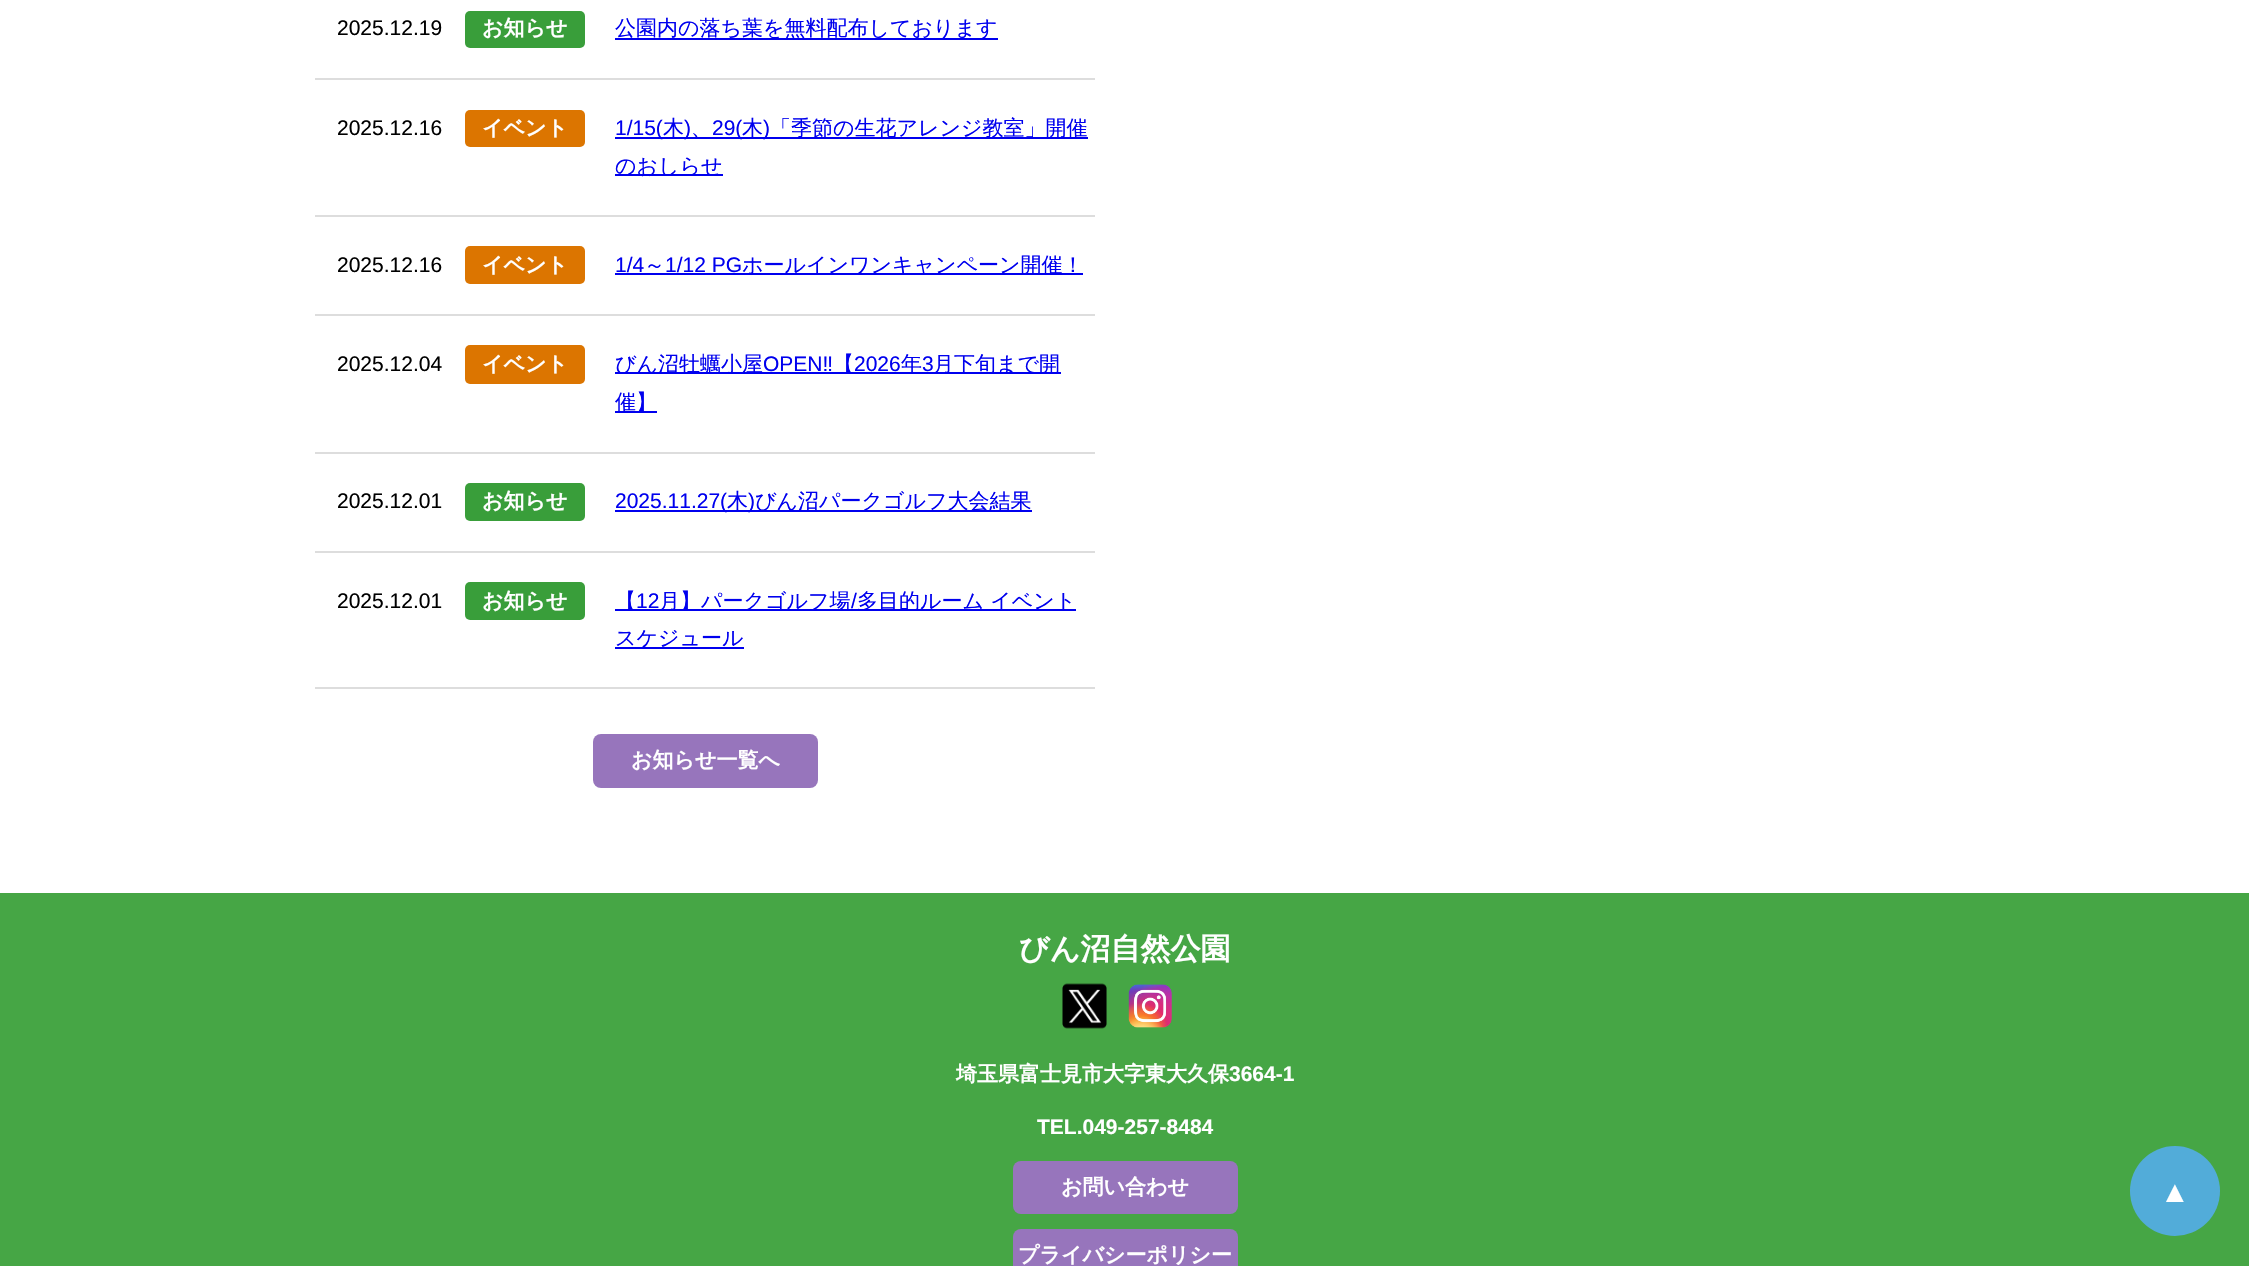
void draw(SkCanvas* c) {
SkPaint p;
p.setAntiAlias(true);
auto F=[&](const char* family, int weight, float size, bool italic = false){SkFontStyle style(weight, SkFontStyle::kNormal_Width,italic ? SkFontStyle::kItalic_Slant : SkFontStyle::kUpright_Slant);SkFont result(fontMgr->matchFamilyStyle(family, style), size);result.setSubpixel(true);return result;};
auto T=[&](const char* s, float x, float y, const SkFont& font){c->drawString(s, x, y, font, p);};
auto R=[&](float x, float y, float w, float h){c->drawRect(SkRect::MakeXYWH(x, y, w, h), p);};
auto Q=[&](float x, float y, float w, float h, float radius){c->drawRoundRect(SkRect::MakeXYWH(x, y, w, h), radius, radius, p);};
auto I=[&](const char* path, float x, float y, float w, float h){auto image = SkImages::DeferredFromEncodedData(SkData::MakeFromFileName(path));c->drawImageRect(image, SkRect::MakeXYWH(x, y, w, h), SkSamplingOptions());};
c->clear(0xffffffff);
p.setColor(0xffdddddd);
R(315,78,780,2);
auto f1 = F("Liberation Sans",400,21);
p.setColor(0xff000000);
T("2025.12.19",337,35,f1);
p.setColor(0xff399e3a);
Q(465,11,120,37,5);
auto f2 = F("WenQuanYi Zen Hei",700,21);
p.setColor(0xffffffff);
T("お知らせ",482,35,f2);
p.setColor(0xff0000ee);
R(615,38,383,2);
auto f3 = F("WenQuanYi Zen Hei",500,21);
T("公園内の落ち葉を無料配布しております",615,35,f3);
p.setColor(0xffdddddd);
R(315,215,780,2);
p.setColor(0xff000000);
T("2025.12.16",337,135,f1);
p.setColor(0xffdc7500);
Q(465,110,120,37,5);
p.setColor(0xffffffff);
T("イベント",482,135,f2);
p.setColor(0xff0000ee);
R(615,137,473,2);
T("1/15(",615,135,f1);
T("木",663,135,f3);
T(")",684,135,f1);
T("、",691,135,f3);
T("29(",712,135,f1);
T("木",742,135,f3);
T(")",763,135,f1);
T("「季節の生花アレンジ教室」開催",770,135,f3);
R(615,174,108,2);
T("のおしらせ",615,173,f3);
p.setColor(0xffdddddd);
R(315,314,780,2);
p.setColor(0xff000000);
T("2025.12.16",337,272,f1);
p.setColor(0xffdc7500);
Q(465,246,120,38,5);
p.setColor(0xffffffff);
T("イベント",482,272,f2);
p.setColor(0xff0000ee);
T("1/4",615,272,f1);
T("～",644,272,f3);
R(615,273,468,2);
T("1/12 PG",665,272,f1);
T("ホールインワンキャンペーン開催！",742,272,f3);
p.setColor(0xffdddddd);
R(315,452,780,2);
p.setColor(0xff000000);
T("2025.12.04",337,371,f1);
p.setColor(0xffdc7500);
Q(465,345,120,39,5);
p.setColor(0xffffffff);
T("イベント",482,371,f2);
p.setColor(0xff0000ee);
R(615,372,446,2);
T("びん沼牡蠣小屋",615,371,f3);
T("OPEN‼",763,371,f1);
T("【",833,371,f3);
T("2026",854,371,f1);
T("年",901,371,f3);
T("3",922,371,f1);
T("月下旬まで開",933,371,f3);
R(615,411,42,2);
T("催】",615,409,f3);
p.setColor(0xffdddddd);
R(315,551,780,2);
p.setColor(0xff000000);
T("2025.12.01",337,508,f1);
p.setColor(0xff399e3a);
Q(465,483,120,38,5);
p.setColor(0xffffffff);
T("お知らせ",482,508,f2);
p.setColor(0xff0000ee);
R(615,510,417,2);
T("2025.11.27(",615,508,f1);
T("木",727,508,f3);
T(")",748,508,f1);
T("びん沼パークゴルフ大会結果",755,508,f3);
p.setColor(0xffdddddd);
R(315,687,780,2);
p.setColor(0xff000000);
T("2025.12.01",337,608,f1);
p.setColor(0xff399e3a);
Q(465,582,120,38,5);
p.setColor(0xffffffff);
T("お知らせ",482,608,f2);
p.setColor(0xff0000ee);
R(615,609,461,2);
T("【",615,608,f3);
T("12",636,608,f1);
T("月】パークゴルフ場",659,608,f3);
T("/",851,608,f1);
T("多目的ルーム イベント",857,608,f3);
R(615,647,129,2);
T("スケジュール",615,645,f3);
p.setColor(0xff9775bc);
Q(593,734,225,54,8);
p.setColor(0xffffffff);
T("お知らせ一覧へ",631,767,f2);
p.setColor(0xff46a645);
R(0,893,2249,373);
auto f4 = F("WenQuanYi Zen Hei",700,30);
p.setColor(0xffffffff);
T("びん沼自然公園",1019,959,f4);
I("1.png",1062,983,45,46);
I("2.png",1128,984,44,44);
T("埼玉県富士見市大字東大久保",956,1081,f2);
auto f5 = F("Liberation Sans",700,21);
T("3664-1",1229,1081,f5);
T("TEL.049-257-8484",1037,1134,f5);
p.setColor(0xff9775bc);
Q(1013,1161,225,53,8);
p.setColor(0xffffffff);
T("お問い合わせ",1061,1194,f2);
p.setColor(0xff9775bc);
Q(1013,1229,225,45,8);
p.setColor(0xffffffff);
T("プライバシーポリシー",1018,1262,f2);
p.setColor(0xff52acd9);
c->drawCircle(2175,1191,45,p);
auto f6 = F("Liberation Sans",400,30);
p.setColor(0xffffffff);
T("▲",2160,1202,f6);
}
